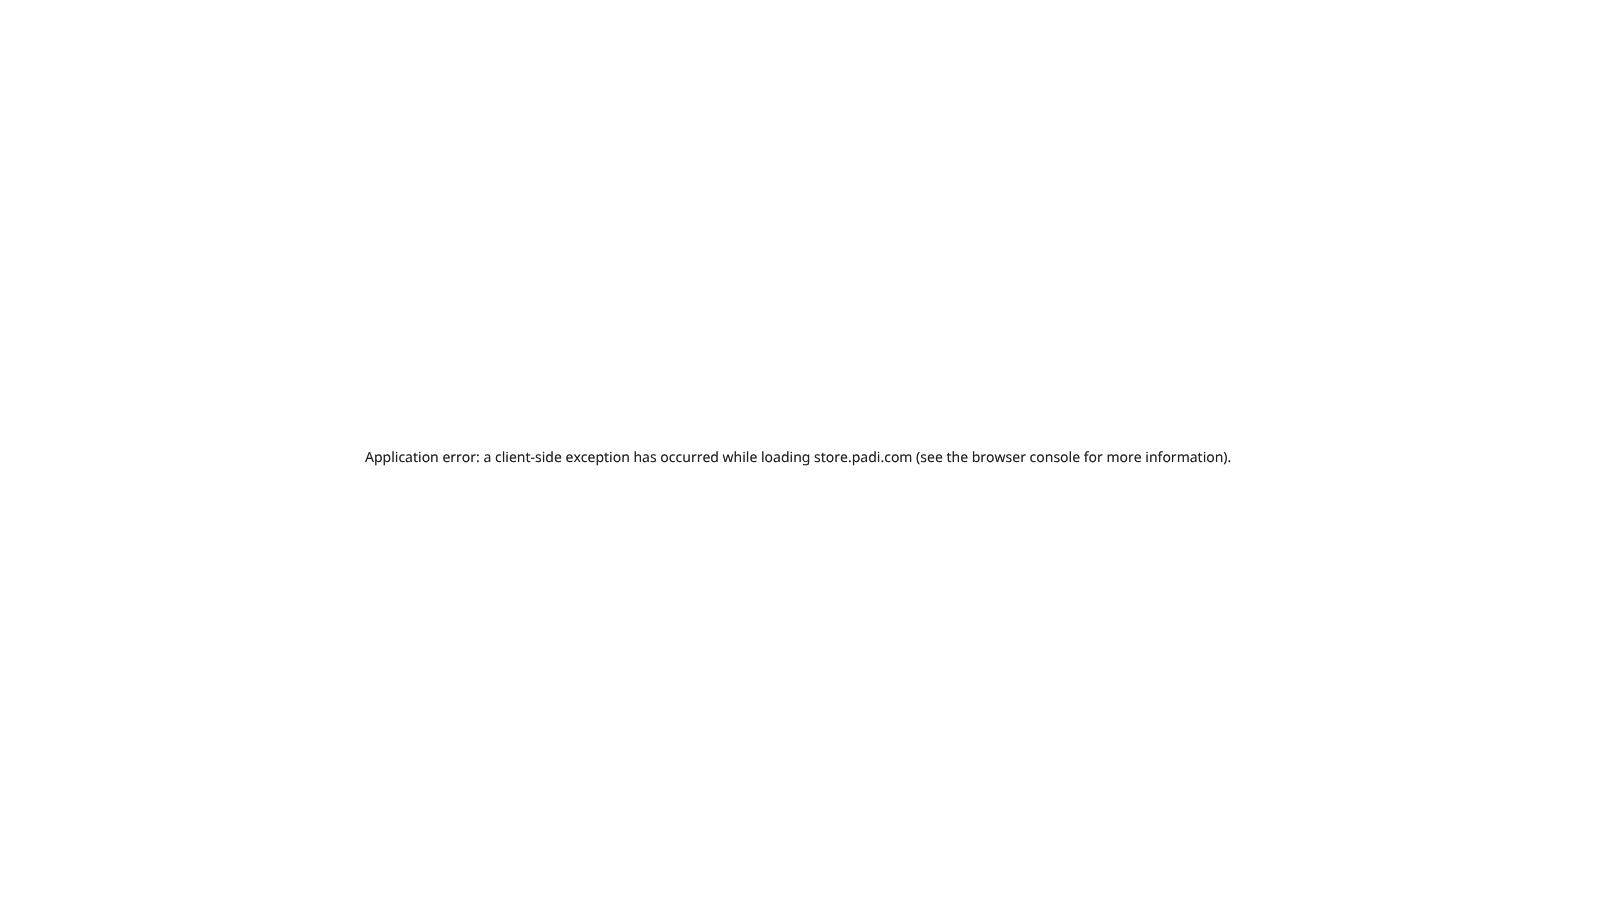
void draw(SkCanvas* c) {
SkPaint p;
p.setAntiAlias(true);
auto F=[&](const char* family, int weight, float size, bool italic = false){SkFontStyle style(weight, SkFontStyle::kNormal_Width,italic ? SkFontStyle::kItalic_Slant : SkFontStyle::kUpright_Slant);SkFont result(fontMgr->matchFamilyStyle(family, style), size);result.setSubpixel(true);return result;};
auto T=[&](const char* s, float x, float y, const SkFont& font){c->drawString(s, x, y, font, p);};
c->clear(0xffffffff);
auto f1 = F("Noto Sans",400,14);
p.setColor(0xff212121);
T("Application error: a client-side exception has occurred while loading store.padi.com (see the browser console for more information).",365,462,f1);
}
